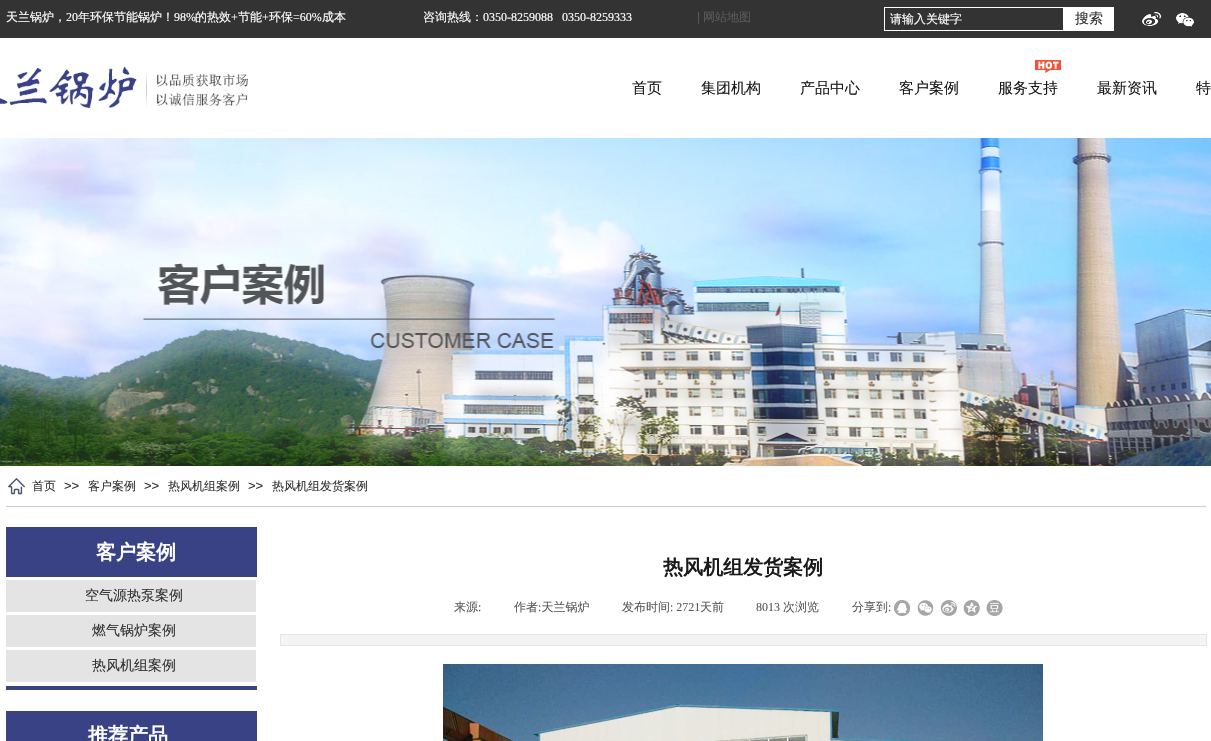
void draw(SkCanvas* c) {
SkPaint p;
p.setAntiAlias(true);
auto F=[&](const char* family, int weight, float size, bool italic = false){SkFontStyle style(weight, SkFontStyle::kNormal_Width,italic ? SkFontStyle::kItalic_Slant : SkFontStyle::kUpright_Slant);SkFont result(fontMgr->matchFamilyStyle(family, style), size);result.setSubpixel(true);return result;};
auto T=[&](const char* s, float x, float y, const SkFont& font){c->drawString(s, x, y, font, p);};
auto R=[&](float x, float y, float w, float h){c->drawRect(SkRect::MakeXYWH(x, y, w, h), p);};
auto I=[&](const char* path, float x, float y, float w, float h){auto image = SkImages::DeferredFromEncodedData(SkData::MakeFromFileName(path));c->drawImageRect(image, SkRect::MakeXYWH(x, y, w, h), SkSamplingOptions());};
c->clear(0xffffffff);
p.setColor(0xff333333);
R(0,0,1211,38);
auto f1 = F("WenQuanYi Zen Hei",500,12);
p.setColor(0xffffffff);
T("天兰锅炉，",6,21,f1);
auto f2 = F("Liberation Serif",400,12);
T("20",66,21,f2);
T("年环保节能锅炉！",78,21,f1);
T("98%",174,21,f2);
T("的热效",195,21,f1);
T("+",231,21,f2);
T("节能",238,21,f1);
T("+",262,21,f2);
T("环保",269,21,f1);
T("=60%",293,21,f2);
T("成本",322,21,f1);
T("咨询热线：",423,21,f1);
T("0350-8259088   0350-8259333",483,21,f2);
auto f3 = F("Liberation Sans",400,12);
p.setColor(0xff5a5a5a);
T("|",697,21,f3);
T("网站地图",703,21,f1);
p.setStroke(true);
p.setStrokeWidth(1);
p.setColor(0xffffffff);
c->drawRect(SkRect::MakeXYWH(884.5,7.5,179,23),p);
p.setStroke(false);
T("请输入关键字",890,23,f1);
R(1064,7,50,24);
auto f4 = F("WenQuanYi Zen Hei",500,14);
p.setColor(0xff333333);
T("搜索",1075,23,f4);
I("1.png",1142,12,19,14);
I("2.png",1176,13,18,14);
I("3.png",0,67,248,41);
I("4.png",1035,60,26,13);
auto f5 = F("WenQuanYi Zen Hei",500,15);
p.setColor(0xff1a1a1a);
T("首页",632,93,f5);
T("集团机构",701,93,f5);
T("产品中心",800,93,f5);
T("客户案例",899,93,f5);
T("服务支持",998,93,f5);
T("最新资讯",1097,93,f5);
T("特",1196,93,f5);
I("5.png",0,138,1211,328);
I("6.png",8,478,17,17);
p.setColor(0xff333333);
T("首页",32,490,f1);
auto f6 = F("Liberation Sans",400,13);
T(">>",64,490,f6);
T("客户案例",88,490,f1);
T(">>",144,490,f6);
T("热风机组案例",168,490,f1);
T(">>",248,490,f6);
T("热风机组发货案例",272,490,f1);
p.setColor(0xffcccccc);
R(6,506,1200,1);
p.setColor(0xff384285);
R(6,527,251,50);
auto f7 = F("WenQuanYi Zen Hei",700,20);
p.setColor(0xffffffff);
T("客户案例",96,559,f7);
p.setColor(0xffe4e4e4);
R(6,580,250,32);
p.setColor(0xff333333);
T("空气源热泵案例",85,600,f4);
p.setColor(0xffe4e4e4);
R(6,615,250,32);
p.setColor(0xff333333);
T("燃气锅炉案例",92,635,f4);
p.setColor(0xffe4e4e4);
R(6,650,250,32);
p.setColor(0xff333333);
T("热风机组案例",92,670,f4);
p.setColor(0xff384285);
R(6,686,251,4);
p.setColor(0xff1a1a1a);
T("热风机组发货案例",663,574,f7);
p.setColor(0xff5a5a5a);
T("来源",454,611,f1);
T(":",478,611,f2);
T("作者 天兰锅炉",514,611,f1);
T(":",538,611,f2);
T("发布时间",622,611,f1);
T(": 2721",670,611,f2);
T("天前",700,611,f1);
T("8013",756,611,f2);
T("次浏览",783,611,f1);
T("分享到",852,611,f1);
T(":",888,611,f2);
I("7.png",894,600,17,16);
I("8.png",917,600,17,16);
I("9.png",940,600,17,16);
I("10.png",963,600,17,16);
I("11.png",986,600,17,16);
p.setColor(0xfff5f5f5);
c->drawRect(SkRect::MakeXYWH(280.5,634.5,926,11),p);
p.setStroke(true);
p.setColor(0xffe5e5e5);
c->drawRect(SkRect::MakeXYWH(280.5,634.5,926,11),p);
I("12.png",443,664,600,77);
p.setStroke(false);
p.setColor(0xff384285);
R(6,711,251,30);
p.setColor(0xffffffff);
T("推荐产品",88,742,f7);
}
